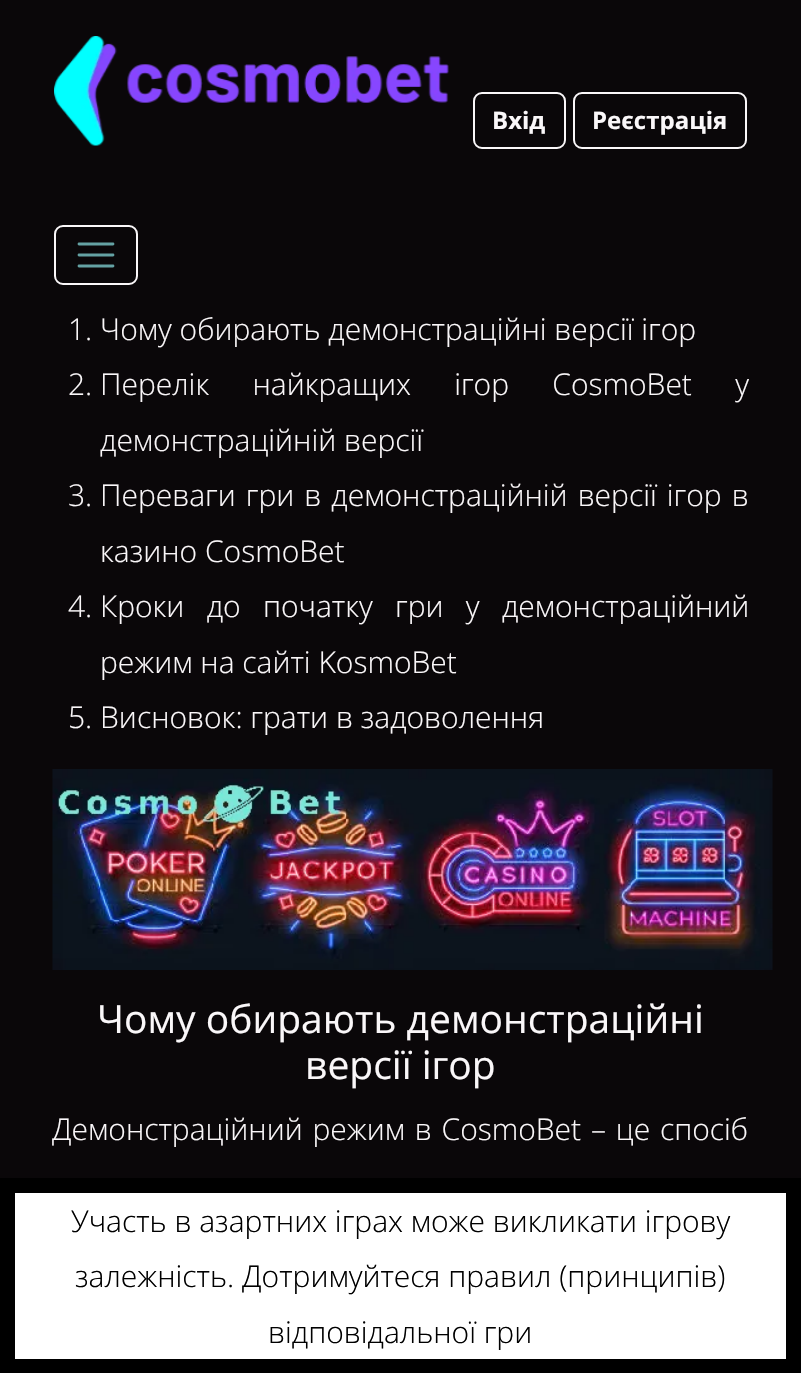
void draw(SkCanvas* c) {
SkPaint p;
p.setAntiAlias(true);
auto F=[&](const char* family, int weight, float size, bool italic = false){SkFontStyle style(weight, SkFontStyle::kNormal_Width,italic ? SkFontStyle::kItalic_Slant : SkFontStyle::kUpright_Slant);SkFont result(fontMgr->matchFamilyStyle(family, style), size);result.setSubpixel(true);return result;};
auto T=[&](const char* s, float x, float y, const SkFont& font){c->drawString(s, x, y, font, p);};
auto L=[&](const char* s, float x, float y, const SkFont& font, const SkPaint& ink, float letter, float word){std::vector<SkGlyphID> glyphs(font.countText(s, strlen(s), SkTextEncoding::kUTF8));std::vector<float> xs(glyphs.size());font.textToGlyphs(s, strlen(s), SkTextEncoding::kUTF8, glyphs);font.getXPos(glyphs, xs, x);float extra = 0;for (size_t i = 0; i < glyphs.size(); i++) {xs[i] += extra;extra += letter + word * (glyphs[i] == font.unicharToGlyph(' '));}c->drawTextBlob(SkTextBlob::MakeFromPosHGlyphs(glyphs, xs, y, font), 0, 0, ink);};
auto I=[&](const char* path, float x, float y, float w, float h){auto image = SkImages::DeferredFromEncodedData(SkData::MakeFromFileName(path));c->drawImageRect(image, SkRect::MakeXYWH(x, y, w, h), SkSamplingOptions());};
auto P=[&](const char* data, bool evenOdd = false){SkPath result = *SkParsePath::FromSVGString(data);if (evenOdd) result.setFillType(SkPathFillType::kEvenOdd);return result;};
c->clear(0xff0a0709);
I("1.png",54,36,395,110);
p.setStroke(true);
p.setStrokeWidth(2);
p.setColor(0xfffaf7f9);
c->drawRoundRect(SkRect::MakeXYWH(474,93,91,55),8,8,p);
auto f1 = F("Open Sans",700,24);
p.setStroke(false);
T("Вхід",492,129,f1);
p.setStroke(true);
c->drawRoundRect(SkRect::MakeXYWH(574,93,172,55),8,8,p);
p.setStroke(false);
T("Реєстрація",592,129,f1);
p.setStroke(true);
c->drawRoundRect(SkRect::MakeXYWH(55,226,82,58),8,8,p);
p.setStrokeWidth(2.8);
p.setStrokeCap(SkPaint::kRound_Cap);
p.setColor(0xff64a1a3);
c->drawPath(P("M79 244h34m-34 11h34m-34 11h34"),p);
auto f2 = F("Open Sans",300,30);
p.setStroke(false);
p.setColor(0xfffaf7f9);
T("1. Чому обирають демонстраційні версії ігор",68,340,f2);
T("2.",68,395,f2);
L("Перелік найкращих ігор CosmoBet у",100,395,f2,p,0,35.5);
T("демонстраційній версії",100,451,f2);
T("3.",68,506,f2);
L("Переваги гри в демонстраційній версії ігор в",100,506,f2,p,0,2.25);
T("казино CosmoBet",100,562,f2);
T("4.",68,617,f2);
L("Кроки до початку гри у демонстраційний",100,617,f2,p,0,14.5);
T("режим на сайті KosmoBet",100,673,f2);
T("5. Висновок: грати в задоволення",68,728,f2);
I("2.png",52,769,721,201);
auto f3 = F("Open Sans",400,39);
T("Чому обирають демонстраційні",97,1033,f3);
T("версії ігор",305,1079,f3);
L("Демонстраційний режим в CosmoBet – це спосіб",52,1140,f2,p,0,2);
p.setColor(0xffffffff);
c->drawRect(SkRect::MakeXYWH(7.5,1185.5,786,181),p);
p.setStroke(true);
p.setStrokeWidth(15);
p.setStrokeCap(SkPaint::kButt_Cap);
p.setColor(0xff000000);
c->drawRect(SkRect::MakeXYWH(7.5,1185.5,786,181),p);
p.setStroke(false);
T("Участь в азартних іграх може викликати ігрову",71,1232,f2);
T("залежність. Дотримуйтеся правил (принципів)",75,1287,f2);
T("відповідальної гри",268,1343,f2);
}
